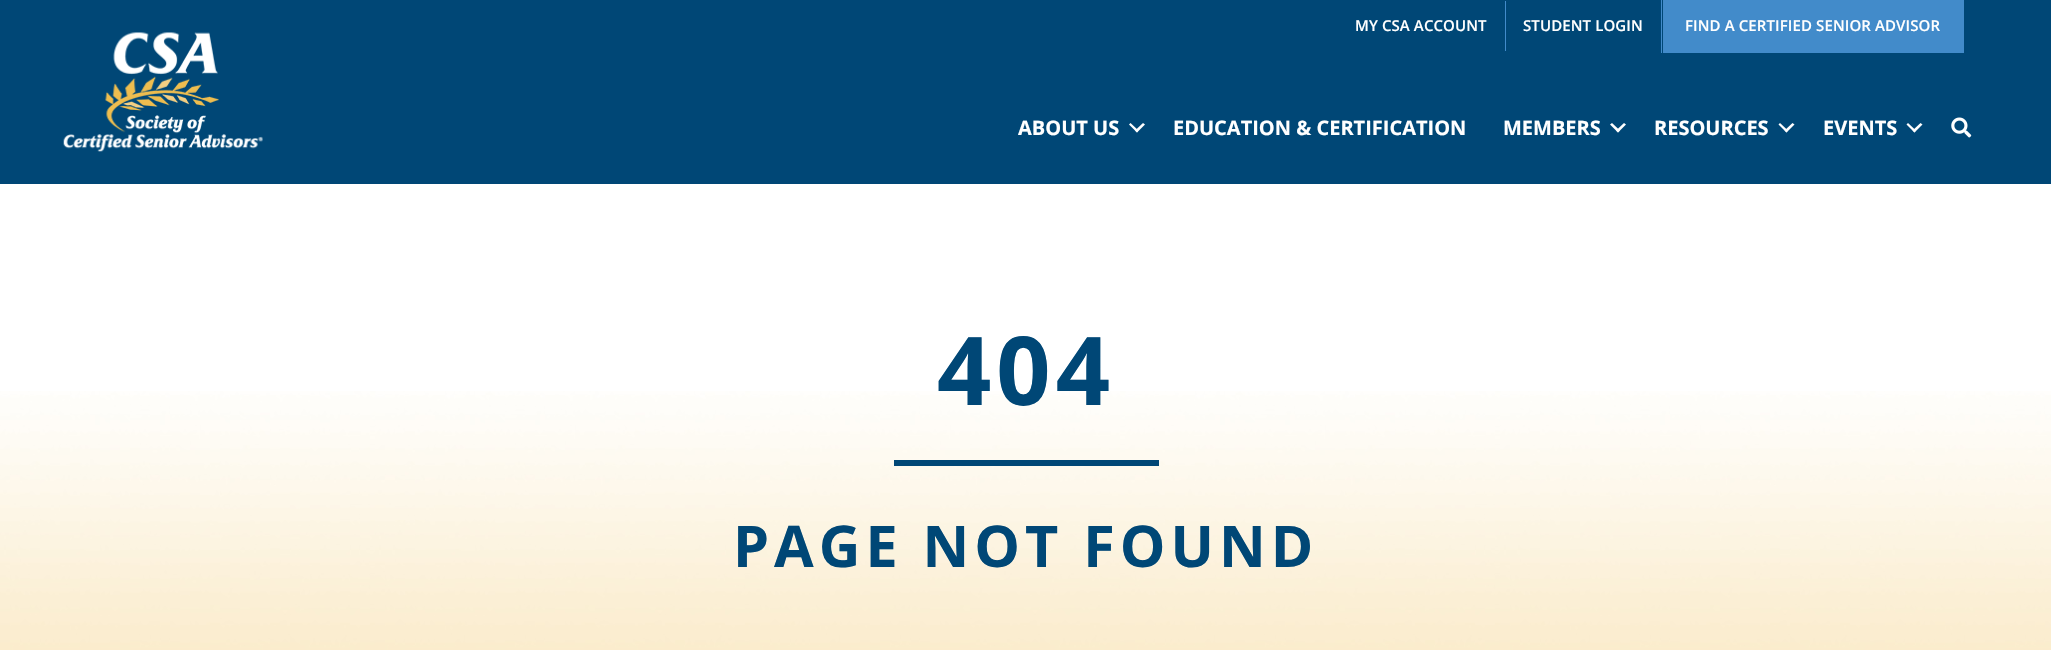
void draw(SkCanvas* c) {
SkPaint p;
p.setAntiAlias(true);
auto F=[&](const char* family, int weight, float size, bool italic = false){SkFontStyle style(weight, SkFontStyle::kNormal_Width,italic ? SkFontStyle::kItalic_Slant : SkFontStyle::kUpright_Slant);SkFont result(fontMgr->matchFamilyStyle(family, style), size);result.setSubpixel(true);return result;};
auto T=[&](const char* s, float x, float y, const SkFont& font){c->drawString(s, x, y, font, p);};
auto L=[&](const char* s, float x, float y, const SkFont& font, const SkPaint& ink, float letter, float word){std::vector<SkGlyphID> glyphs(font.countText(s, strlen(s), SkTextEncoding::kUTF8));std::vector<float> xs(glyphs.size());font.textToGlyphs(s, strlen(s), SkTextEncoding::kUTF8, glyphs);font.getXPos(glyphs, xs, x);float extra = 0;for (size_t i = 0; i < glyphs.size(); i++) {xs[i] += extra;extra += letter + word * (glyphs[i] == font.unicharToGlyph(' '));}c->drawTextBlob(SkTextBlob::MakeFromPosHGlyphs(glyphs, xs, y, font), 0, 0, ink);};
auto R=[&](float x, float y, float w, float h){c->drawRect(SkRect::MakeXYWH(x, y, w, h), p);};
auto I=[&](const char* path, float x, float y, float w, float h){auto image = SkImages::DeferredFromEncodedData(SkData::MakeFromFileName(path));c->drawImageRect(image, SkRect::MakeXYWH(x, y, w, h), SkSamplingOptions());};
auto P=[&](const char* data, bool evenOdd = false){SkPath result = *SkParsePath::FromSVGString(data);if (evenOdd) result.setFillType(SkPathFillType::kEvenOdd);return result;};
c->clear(0xffffffff);
p.setColor(0xff004776);
R(0,0,2051,184);
I("1.png",63,32,200,120);
auto f1 = F("Open Sans",600,15);
p.setColor(0xffffffff);
L("MY CSA ACCOUNT",1355,31,f1,p,.1,0);
p.setColor(0xff428bca);
R(1505,1,1,50);
p.setColor(0xffffffff);
L("STUDENT LOGIN",1523,31,f1,p,.1,0);
p.setColor(0xff428bca);
R(1661,0,1,53);
R(1663,0,301,53);
p.setColor(0xffffffff);
L("FIND A CERTIFIED SENIOR ADVISOR",1685,31,f1,p,.1,0);
auto f2 = F("Open Sans",700,20);
T("ABOUT US",1018,135,f2);
c->drawPath(P("M1143 123l2 1.5l-8 8l-2-2z"),p);
c->drawPath(P("M1130.5 123l8 7.5l-1.5 2l-8-8z"),p);
T("EDUCATION & CERTIFICATION",1173,135,f2);
T("MEMBERS",1503,135,f2);
c->drawPath(P("M1624 123l2 1.5l-8 8l-2-2z"),p);
c->drawPath(P("M1612 123l8 7.5l-2 2l-8-8z"),p);
T("RESOURCES",1654,135,f2);
c->drawPath(P("M1792.5 123l2 1.5l-8 8l-2-2z"),p);
c->drawPath(P("M1780 123l8 7.5l-1.5 2l-8-8z"),p);
T("EVENTS",1823,135,f2);
c->drawPath(P("M1920.5 123l2 1.5l-8 8l-2-2z"),p);
c->drawPath(P("M1908 123l8 7.5l-1.5 2l-8-8z"),p);
I("2.png",1951,117,21,21);
I("3.png",0,391,2051,259);
auto f3 = F("Open Sans",700,95);
p.setColor(0xff004776);
L("404",937,405,f3,p,5,0);
R(894,460,265,6);
auto f4 = F("Open Sans",700,57.5);
L("PAGE NOT FOUND",733,567,f4,p,5,0);
}
